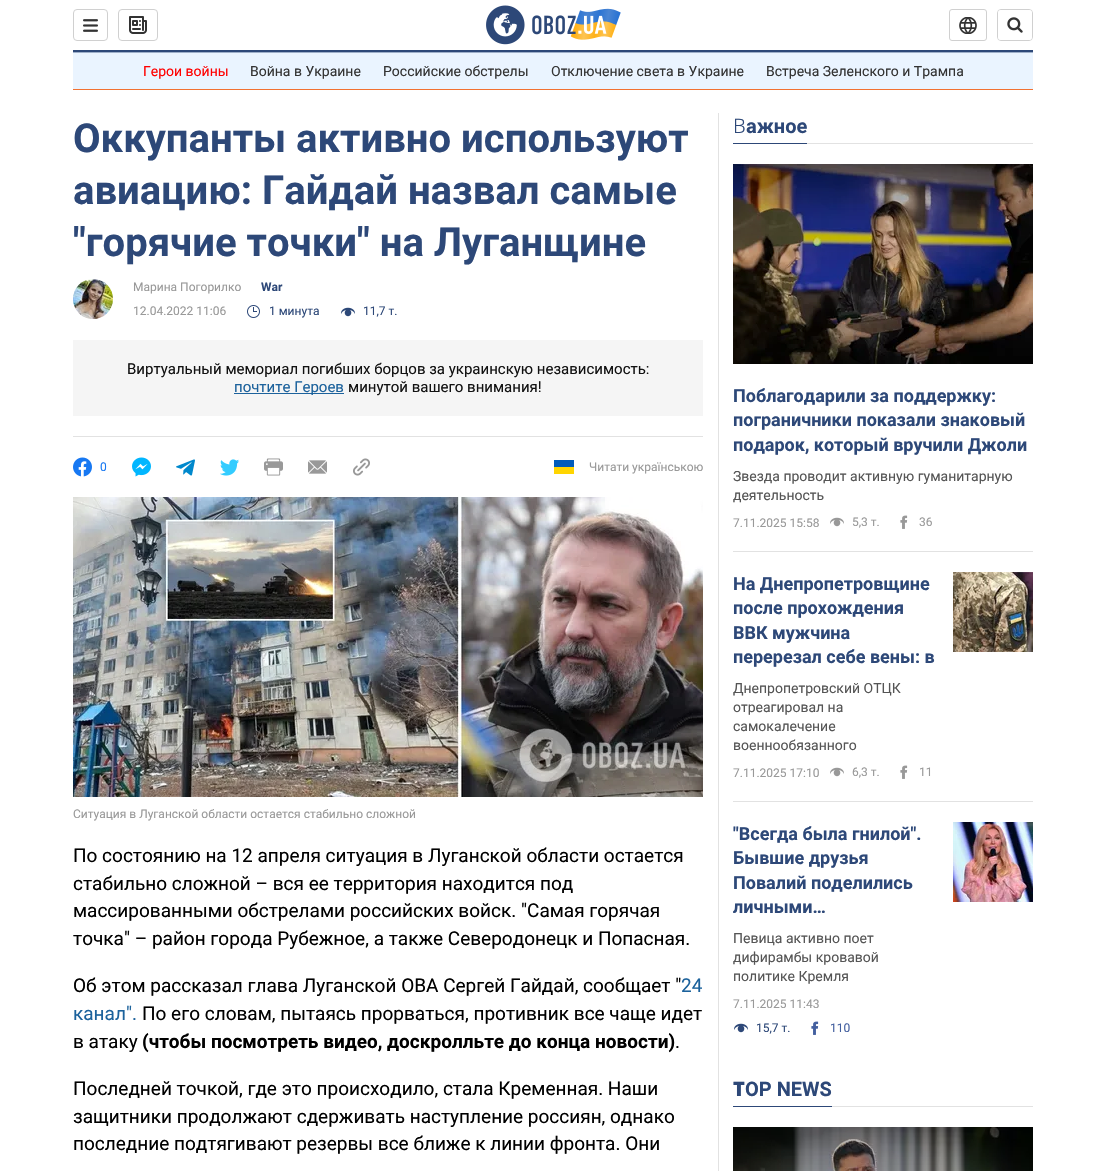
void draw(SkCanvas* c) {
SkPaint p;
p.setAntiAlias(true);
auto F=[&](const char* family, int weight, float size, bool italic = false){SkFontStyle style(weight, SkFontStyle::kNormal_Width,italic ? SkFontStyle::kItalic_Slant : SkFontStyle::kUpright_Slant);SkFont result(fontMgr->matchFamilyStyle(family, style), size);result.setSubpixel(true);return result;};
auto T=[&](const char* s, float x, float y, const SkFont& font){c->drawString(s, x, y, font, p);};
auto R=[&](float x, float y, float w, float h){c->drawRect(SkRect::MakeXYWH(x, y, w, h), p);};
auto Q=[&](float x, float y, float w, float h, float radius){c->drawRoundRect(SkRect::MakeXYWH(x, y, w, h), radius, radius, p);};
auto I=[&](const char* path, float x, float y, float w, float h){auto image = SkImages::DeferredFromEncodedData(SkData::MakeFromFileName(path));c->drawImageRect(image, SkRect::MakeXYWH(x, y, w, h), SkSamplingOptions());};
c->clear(0xffffffff);
p.setColor(0xff2d4878);
R(73,50,960,2);
p.setStroke(true);
p.setStrokeWidth(1);
p.setColor(0xffd0d0d0);
c->drawRoundRect(SkRect::MakeXYWH(73.5,9.5,34,31),3.5,3.5,p);
I("1.png",83,19,15,13);
c->drawRoundRect(SkRect::MakeXYWH(118.5,9.5,39,31),3.5,3.5,p);
I("2.png",129,16,18,18);
I("3.png",486,5,135,40);
c->drawRoundRect(SkRect::MakeXYWH(949.5,9.5,37,31),2.5,2.5,p);
I("4.png",959,17,18,17);
c->drawRoundRect(SkRect::MakeXYWH(997.5,9.5,35,31),3.5,3.5,p);
p.setStroke(false);
p.setColor(0xffffffff);
Q(998,10,34,30,3);
I("5.png",1007,17,16,16);
p.setColor(0xffeaf4ff);
R(73,53,960,36);
p.setColor(0xff9eafc9);
R(73,52,960,1);
p.setColor(0xfff17132);
R(73,89,960,1);
auto f1 = F("Roboto",400,14);
p.setColor(0xffff0000);
T("Герои войны",143,76,f1);
p.setColor(0xff333333);
T("Война в Украине",250,76,f1);
T("Российские обстрелы",383,76,f1);
T("Отключение света в Украине",551,76,f1);
T("Встреча Зеленского и Трампа",766,76,f1);
p.setColor(0xffe2e2e2);
R(73,436,630,1);
auto f2 = F("Roboto",700,40);
p.setColor(0xff2d4878);
T("Оккупанты активно используют",73,152,f2);
T("авиацию: Гайдай назвал самые",73,204,f2);
T("\"горячие точки\" на Луганщине",73,256,f2);
I("6.png",73,279,40,40);
auto f3 = F("Roboto",400,12);
p.setColor(0xff999999);
T("Марина Погорилко",133,291,f3);
auto f4 = F("Roboto",700,12);
p.setColor(0xff2d4878);
T("War",261,291,f4);
p.setColor(0xff999999);
T("12.04.2022 11:06",133,315,f3);
I("7.png",247,305,13,13);
p.setColor(0xff2d4878);
T("1 минута",269,315,f3);
I("8.png",341,307,14,10);
T("11,7 т.",363,315,f3);
p.setColor(0xfff5f5f5);
R(73,340,630,76);
auto f5 = F("Roboto",400,15);
p.setColor(0xff121212);
T("Виртуальный мемориал погибших борцов за украинскую независимость:",127,374,f5);
p.setColor(0xff1c629c);
R(234,393,110,1);
T("почтите Героев",234,392,f5);
p.setColor(0xff121212);
T("минутой вашего внимания!",348,392,f5);
I("9.png",73,457,19,20);
p.setColor(0xff1778f2);
T("0",100,471,f3);
I("10.png",132,457,19,20);
I("11.png",176,459,19,17);
I("12.png",220,459,19,17);
I("13.png",264,458,19,18);
I("14.png",308,460,19,14);
I("15.png",353,458,17,18);
p.setColor(0xff005bbb);
R(554,460,20,7);
p.setColor(0xffffd500);
R(554,467,20,7);
p.setColor(0xff999999);
T("Читати українською",589,471,f3);
I("16.png",73,497,630,300);
T("Ситуация в Луганской области остается стабильно сложной",73,818,f3);
auto f6 = F("Roboto",400,19);
p.setColor(0xff000000);
T("По состоянию на 12 апреля ситуация в Луганской области остается",73,862,f6);
T("стабильно сложной – вся ее территория находится под",73,890,f6);
T("массированными обстрелами российских войск. \"Самая горячая",73,917,f6);
T("точка\" – район города Рубежное, а также Северодонецк и Попасная.",73,945,f6);
T("Об этом рассказал глава Луганской ОВА Сергей Гайдай, сообщает \"",73,992,f6);
p.setColor(0xff1c629c);
T("24",681,992,f6);
T("канал\".",73,1020,f6);
p.setColor(0xff000000);
T("По его словам, пытаясь прорваться, противник все чаще идет",142,1020,f6);
T("в атаку",73,1048,f6);
auto f7 = F("Roboto",700,19);
T("(чтобы посмотреть видео, доскролльте до конца новости)",142,1048,f7);
T(".",675,1048,f6);
T("Последней точкой, где это происходило, стала Кременная. Наши",73,1095,f6);
T("защитники продолжают сдерживать наступление россиян, однако",73,1123,f6);
T("последние подтягивают резервы все ближе к линии фронта. Они",73,1150,f6);
p.setColor(0xffe2e2e2);
R(718,113,1,1058);
R(807,143,226,1);
auto f8 = F("Noto Sans",300,20);
p.setColor(0xff2d4878);
T("В",733,133,f8);
auto f9 = F("Roboto",700,20);
T("ажное",746,133,f9);
R(733,143,74,1);
p.setColor(0xffe2e2e2);
R(733,551,300,1);
I("17.png",733,164,300,200);
{
const SkColor colors[] = {0x4d000000,0x00000000};
const float stops[] = {0,1};
const SkPoint ends[] = {{883,164}, {883,369}};
p.setShader(SkGradientShader::MakeLinear(ends, colors, stops, 2, SkTileMode::kClamp));
p.setAlpha(255);
}
R(733,164,300,190);
auto f10 = F("Roboto",700,18);
p.setShader(nullptr);
p.setColor(0xff2d4878);
T("Поблагодарили за поддержку:",733,402,f10);
T("пограничники показали знаковый",733,426,f10);
T("подарок, который вручили Джоли",733,451,f10);
p.setColor(0xff555555);
T("Звезда проводит активную гуманитарную",733,481,f1);
T("деятельность",733,500,f1);
p.setColor(0xff999999);
T("7.11.2025 15:58",733,527,f3);
I("18.png",830,517,14,10);
T("5,3 т.",852,526,f3);
I("19.png",900,515,8,14);
T("36",919,526,f3);
p.setColor(0xffe2e2e2);
R(733,801,300,1);
p.setColor(0xff2d4878);
T("На Днепропетровщине",733,590,f10);
T("после прохождения",733,614,f10);
T("ВВК мужчина",733,639,f10);
T("перерезал себе вены: в",733,663,f10);
p.setColor(0xff555555);
T("Днепропетровский ОТЦК",733,693,f1);
T("отреагировал на",733,712,f1);
T("самокалечение",733,731,f1);
T("военнообязанного",733,750,f1);
p.setColor(0xff999999);
T("7.11.2025 17:10",733,777,f3);
I("18.png",830,767,14,10);
T("6,3 т.",852,776,f3);
I("19.png",900,765,8,14);
T("11",919,776,f3);
I("20.png",953,572,80,80);
p.setColor(0xff2d4878);
T("\"Всегда была гнилой\".",733,840,f10);
T("Бывшие друзья",733,864,f10);
T("Повалий поделились",733,889,f10);
T("личными…",733,913,f10);
p.setColor(0xff555555);
T("Певица активно поет",733,943,f1);
T("дифирамбы кровавой",733,962,f1);
T("политике Кремля",733,981,f1);
p.setColor(0xff999999);
T("7.11.2025 11:43",733,1008,f3);
I("8.png",734,1023,14,10);
p.setColor(0xff2d4878);
T("15,7 т.",756,1032,f3);
I("21.png",811,1021,8,14);
p.setColor(0xff435f9f);
T("110",830,1032,f3);
I("22.png",953,822,80,80);
p.setColor(0xffe2e2e2);
R(832,1106,201,1);
auto f11 = F("Noto Sans",900,20);
p.setColor(0xff2d4878);
T("T",733,1096,f11);
T("OP NEWS",745,1096,f9);
R(733,1106,99,1);
I("23.png",733,1127,300,44);
}
